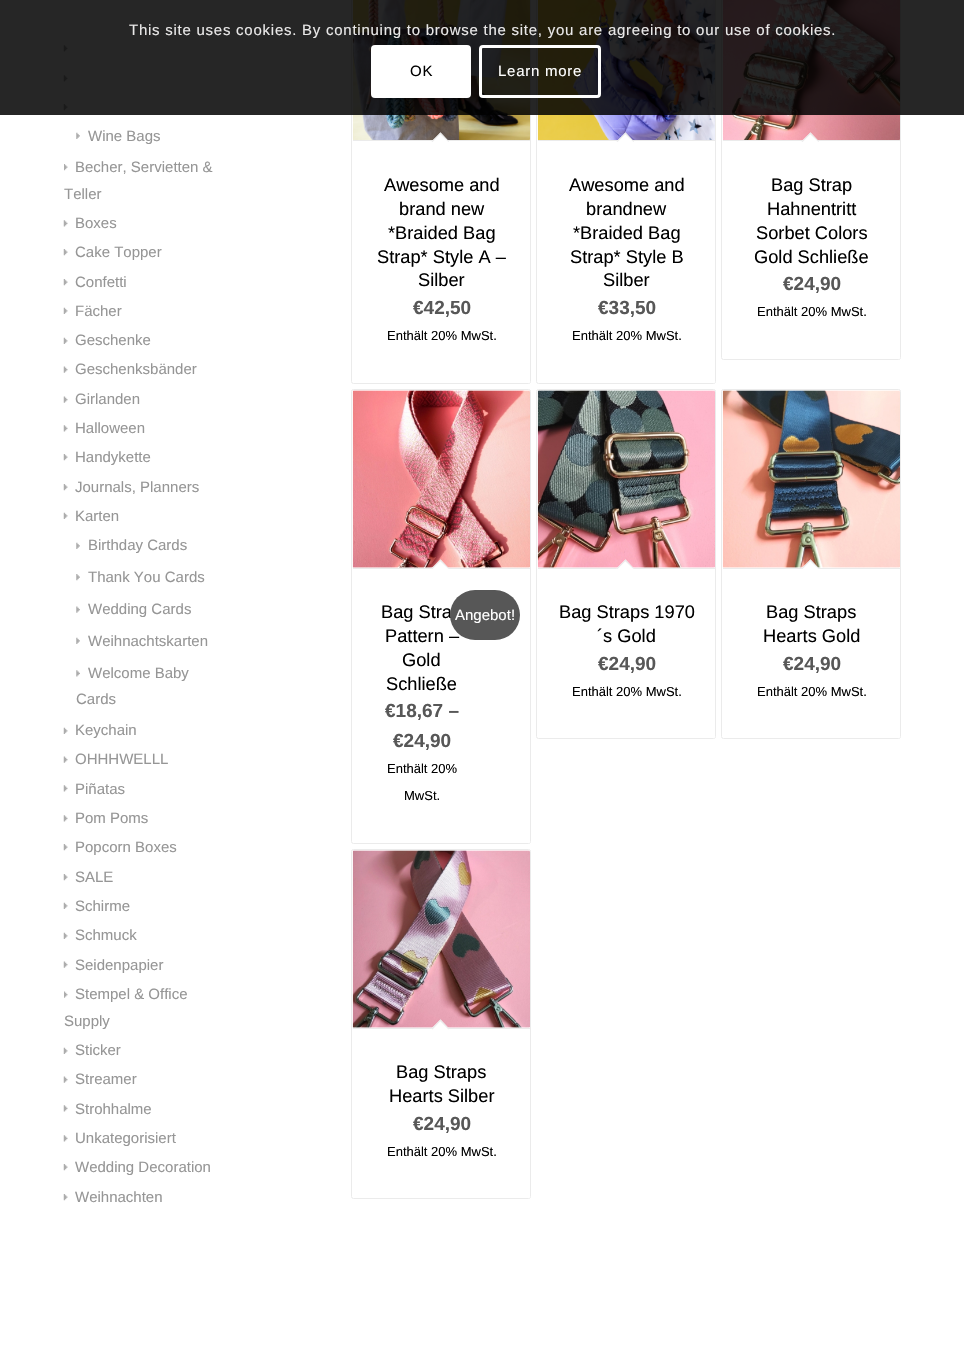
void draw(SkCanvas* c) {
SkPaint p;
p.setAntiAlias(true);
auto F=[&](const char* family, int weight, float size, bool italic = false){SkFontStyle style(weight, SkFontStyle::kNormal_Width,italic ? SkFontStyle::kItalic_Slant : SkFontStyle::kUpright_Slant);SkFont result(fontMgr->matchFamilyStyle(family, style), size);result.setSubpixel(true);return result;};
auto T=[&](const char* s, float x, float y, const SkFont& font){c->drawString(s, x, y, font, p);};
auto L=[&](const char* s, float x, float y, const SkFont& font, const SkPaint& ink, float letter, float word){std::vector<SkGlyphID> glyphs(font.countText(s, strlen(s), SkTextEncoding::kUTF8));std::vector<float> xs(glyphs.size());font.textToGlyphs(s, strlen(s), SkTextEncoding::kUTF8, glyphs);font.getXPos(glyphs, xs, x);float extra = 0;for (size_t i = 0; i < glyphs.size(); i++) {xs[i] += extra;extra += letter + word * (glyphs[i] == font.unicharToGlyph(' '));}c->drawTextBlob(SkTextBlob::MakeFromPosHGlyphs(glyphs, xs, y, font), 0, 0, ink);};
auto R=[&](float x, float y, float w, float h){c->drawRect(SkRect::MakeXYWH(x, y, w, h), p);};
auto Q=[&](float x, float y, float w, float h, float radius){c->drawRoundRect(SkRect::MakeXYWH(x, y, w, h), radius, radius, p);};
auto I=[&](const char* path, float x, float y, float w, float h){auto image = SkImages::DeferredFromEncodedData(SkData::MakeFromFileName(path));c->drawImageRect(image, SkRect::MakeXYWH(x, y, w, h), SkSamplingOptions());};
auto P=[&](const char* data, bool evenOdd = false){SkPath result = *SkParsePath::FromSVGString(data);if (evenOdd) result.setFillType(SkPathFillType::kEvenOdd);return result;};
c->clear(0xffffffff);
I("1.png",63,45,5,7);
I("1.png",63,75,5,7);
I("2.png",63,104,5,7);
p.setStroke(true);
p.setStrokeWidth(1);
p.setColor(0xffebebeb);
c->drawRoundRect(SkRect::MakeXYWH(351.5,-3.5,179,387),2,2,p);
I("11.png",352,0,178,140);
c->drawRoundRect(SkRect::MakeXYWH(536.5,-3.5,179,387),2,2,p);
I("12.png",537,0,178,140);
c->drawRoundRect(SkRect::MakeXYWH(721.5,-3.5,179,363),2,2,p);
I("13.png",722,0,178,140);
p.setStroke(false);
p.setColor(0xd9000000);
R(0,0,964,115);
auto f1 = F("Liberation Sans",400,15);
p.setColor(0xffe9e8e8);
L("This site uses cookies. By continuing to browse the site, you are agreeing to our use of cookies.",129,35,f1,p,.75,0);
p.setColor(0xffffffff);
Q(371,45,100,53,4);
p.setColor(0xff000000);
L("OK",410,76,f1,p,.75,0);
p.setStroke(true);
p.setStrokeWidth(3);
p.setColor(0xffffffff);
c->drawRoundRect(SkRect::MakeXYWH(480.5,46.5,119,50),2.5,2.5,p);
p.setStroke(false);
L("Learn more",498,76,f1,p,.75,0);
I("3.png",76,132,4,7);
p.setColor(0xff969696);
T("Wine Bags",88,141,f1);
I("4.png",64,164,4,7);
T("Becher, Servietten &",75,172,f1);
T("Teller",64,199,f1);
I("1.png",63,220,5,7);
T("Boxes",75,228,f1);
I("2.png",63,249,5,7);
T("Cake Topper",75,257,f1);
I("2.png",63,279,5,7);
T("Confetti",75,287,f1);
I("5.png",63,307,5,7);
T("Fächer",75,316,f1);
I("5.png",63,337,5,7);
T("Geschenke",75,345,f1);
I("6.png",63,366,5,7);
T("Geschenksbänder",75,374,f1);
I("6.png",63,396,5,7);
T("Girlanden",75,404,f1);
I("1.png",63,425,5,7);
T("Halloween",75,433,f1);
I("2.png",63,454,5,7);
T("Handykette",75,462,f1);
I("2.png",63,484,5,7);
T("Journals, Planners",75,492,f1);
I("5.png",63,512,5,7);
T("Karten",75,521,f1);
I("3.png",76,542,4,7);
T("Birthday Cards",88,550,f1);
I("7.png",76,574,4,7);
T("Thank You Cards",88,582,f1);
I("8.png",76,606,4,7);
T("Wedding Cards",88,614,f1);
I("3.png",76,637,4,7);
T("Weihnachtskarten",88,646,f1);
I("9.png",76,670,4,7);
T("Welcome Baby",88,678,f1);
T("Cards",76,704,f1);
I("5.png",63,727,5,7);
T("Keychain",75,735,f1);
I("6.png",63,756,5,7);
T("OHHHWELLL",75,764,f1);
I("1.png",63,785,5,7);
T("Piñatas",75,794,f1);
I("1.png",63,815,5,7);
T("Pom Poms",75,823,f1);
I("2.png",63,844,5,7);
T("Popcorn Boxes",75,852,f1);
I("2.png",63,874,5,7);
T("SALE",75,882,f1);
I("5.png",63,902,5,7);
T("Schirme",75,911,f1);
I("5.png",63,932,5,7);
T("Schmuck",75,940,f1);
I("6.png",63,961,5,7);
T("Seidenpapier",75,970,f1);
I("10.png",64,991,4,7);
T("Stempel & Office",75,999,f1);
T("Supply",64,1026,f1);
I("5.png",63,1047,5,7);
T("Sticker",75,1055,f1);
I("6.png",63,1076,5,7);
T("Streamer",75,1084,f1);
I("1.png",63,1105,5,7);
T("Strohhalme",75,1114,f1);
I("1.png",63,1135,5,7);
T("Unkategorisiert",75,1143,f1);
I("2.png",63,1164,5,7);
T("Wedding Decoration",75,1172,f1);
I("2.png",63,1194,5,7);
T("Weihnachten",75,1202,f1);
p.setColor(0xffffffff);
c->drawPath(P("M353 140h177v242c0 .5-.5 1-1 1h-175c-.5 0-1-.5-1-1z"),p);
p.setColor(0xffebebeb);
R(353,140,177,1);
p.setColor(0xffffffff);
c->drawPath(P("M440.5 132.5l8.5 9l-8.5 8.5l-9-8.5z"),p);
p.setColor(0xffebebeb);
c->drawPath(P("M440.5 132.5l8.5 9l-.5 .5l-9-8.5z"),p);
c->drawPath(P("M440.5 132.5l.5 1l-8.5 8.5l-1-.5z"),p);
auto f2 = F("Liberation Sans",400,18.25);
p.setColor(0xff000000);
T("Awesome and",384,191,f2);
T("brand new",399,215,f2);
T("*Braided Bag",388,239,f2);
T("Strap* Style A –",377,263,f2);
T("Silber",418,286,f2);
auto f3 = F("Liberation Sans",700,19);
p.setColor(0xff575757);
T("€42,50",413,314,f3);
auto f4 = F("Liberation Sans",400,13);
p.setColor(0xff000000);
T("Enthält 20% MwSt.",387,340,f4);
p.setColor(0xffffffff);
c->drawPath(P("M538 140h177v242c0 .5-.5 1-1 1h-175c-.5 0-1-.5-1-1z"),p);
p.setColor(0xffebebeb);
R(538,140,177,1);
p.setColor(0xffffffff);
c->drawPath(P("M625.5 132.5l8.5 9l-8.5 8.5l-9-8.5z"),p);
p.setColor(0xffebebeb);
c->drawPath(P("M625.5 132.5l8.5 9l-.5 .5l-9-8.5z"),p);
c->drawPath(P("M625.5 132.5l.5 1l-8.5 8.5l-1-.5z"),p);
p.setColor(0xff000000);
T("Awesome and",569,191,f2);
T("brandnew",586,215,f2);
T("*Braided Bag",573,239,f2);
T("Strap* Style B",570,263,f2);
T("Silber",603,286,f2);
p.setColor(0xff575757);
T("€33,50",598,314,f3);
p.setColor(0xff000000);
T("Enthält 20% MwSt.",572,340,f4);
p.setColor(0xffffffff);
c->drawPath(P("M723 140h177v218c0 .5-.5 1-1 1h-175c-.5 0-1-.5-1-1z"),p);
p.setColor(0xffebebeb);
R(723,140,177,1);
p.setColor(0xffffffff);
c->drawPath(P("M810.5 132.5l8.5 9l-8.5 8.5l-9-8.5z"),p);
p.setColor(0xffebebeb);
c->drawPath(P("M810.5 132.5l8.5 9l-.5 .5l-9-8.5z"),p);
c->drawPath(P("M810.5 132.5l.5 1l-8.5 8.5l-1-.5z"),p);
p.setColor(0xff000000);
T("Bag Strap",771,191,f2);
T("Hahnentritt",767,215,f2);
T("Sorbet Colors",756,239,f2);
T("Gold Schließe",754,263,f2);
p.setColor(0xff575757);
T("€24,90",783,290,f3);
p.setColor(0xff000000);
T("Enthält 20% MwSt.",757,316,f4);
p.setStroke(true);
p.setStrokeWidth(1);
p.setColor(0xffebebeb);
c->drawRoundRect(SkRect::MakeXYWH(351.5,389.5,179,454),2,2,p);
I("14.png",352,390,178,178);
p.setStroke(false);
p.setColor(0xffffffff);
c->drawPath(P("M353 568h177v274c0 .5-.5 1-1 1h-175c-.5 0-1-.5-1-1z"),p);
p.setColor(0xffebebeb);
R(353,568,177,1);
p.setColor(0xffffffff);
c->drawPath(P("M440.5 559.5l8.5 9l-8.5 8.5l-9-8.5z"),p);
p.setColor(0xffebebeb);
c->drawPath(P("M440.5 559.5l8.5 9l-.5 .5l-9-8.5z"),p);
c->drawPath(P("M440.5 559.5l.5 1l-8.5 8.5l-1-.5z"),p);
p.setColor(0xff000000);
T("Bag Stra",381,618,f2);
T("Pattern –",385,642,f2);
T("Gold",402,666,f2);
T("Schließe",386,690,f2);
p.setColor(0xff575757);
Q(450,590,70,50,25);
p.setColor(0xffffffff);
T("Angebot!",455,620,f1);
p.setColor(0xff575757);
T("€18,67 –",385,717,f3);
T("€24,90",393,747,f3);
p.setColor(0xff000000);
T("Enthält 20%",387,773,f4);
T("MwSt.",404,800,f4);
p.setStroke(true);
p.setColor(0xffebebeb);
c->drawRoundRect(SkRect::MakeXYWH(536.5,389.5,179,349),2,2,p);
I("15.png",537,390,178,178);
p.setStroke(false);
p.setColor(0xffffffff);
c->drawPath(P("M538 568h177v169c0 .5-.5 1-1 1h-175c-.5 0-1-.5-1-1z"),p);
p.setColor(0xffebebeb);
R(538,568,177,1);
p.setColor(0xffffffff);
c->drawPath(P("M625.5 559.5l8.5 9l-8.5 8.5l-9-8.5z"),p);
p.setColor(0xffebebeb);
c->drawPath(P("M625.5 559.5l8.5 9l-.5 .5l-9-8.5z"),p);
c->drawPath(P("M625.5 559.5l.5 1l-8.5 8.5l-1-.5z"),p);
p.setColor(0xff000000);
T("Bag Straps 1970",559,618,f2);
T("´s Gold",597,642,f2);
p.setColor(0xff575757);
T("€24,90",598,670,f3);
p.setColor(0xff000000);
T("Enthält 20% MwSt.",572,696,f4);
p.setStroke(true);
p.setColor(0xffebebeb);
c->drawRoundRect(SkRect::MakeXYWH(721.5,389.5,179,349),2,2,p);
I("16.png",722,390,178,178);
p.setStroke(false);
p.setColor(0xffffffff);
c->drawPath(P("M723 568h177v169c0 .5-.5 1-1 1h-175c-.5 0-1-.5-1-1z"),p);
p.setColor(0xffebebeb);
R(723,568,177,1);
p.setColor(0xffffffff);
c->drawPath(P("M810.5 559.5l8.5 9l-8.5 8.5l-9-8.5z"),p);
p.setColor(0xffebebeb);
c->drawPath(P("M810.5 559.5l8.5 9l-.5 .5l-9-8.5z"),p);
c->drawPath(P("M810.5 559.5l.5 1l-8.5 8.5l-1-.5z"),p);
p.setColor(0xff000000);
T("Bag Straps",766,618,f2);
T("Hearts Gold",763,642,f2);
p.setColor(0xff575757);
T("€24,90",783,670,f3);
p.setColor(0xff000000);
T("Enthält 20% MwSt.",757,696,f4);
p.setStroke(true);
p.setColor(0xffebebeb);
c->drawRoundRect(SkRect::MakeXYWH(351.5,849.5,179,349),2,2,p);
I("17.png",352,850,178,178);
p.setStroke(false);
p.setColor(0xffffffff);
c->drawPath(P("M353 1028h177v169c0 .5-.5 1-1 1h-175c-.5 0-1-.5-1-1z"),p);
p.setColor(0xffebebeb);
R(353,1028,177,1);
p.setColor(0xffffffff);
c->drawPath(P("M440.5 1019.5l8.5 9l-8.5 8.5l-9-8.5z"),p);
p.setColor(0xffebebeb);
c->drawPath(P("M440.5 1019.5l8.5 9l-.5 1l-9-9z"),p);
c->drawPath(P("M440.5 1019.5l.5 1l-8.5 9l-1-1z"),p);
p.setColor(0xff000000);
T("Bag Straps",396,1078,f2);
T("Hearts Silber",389,1102,f2);
p.setColor(0xff575757);
T("€24,90",413,1130,f3);
p.setColor(0xff000000);
T("Enthält 20% MwSt.",387,1156,f4);
}
